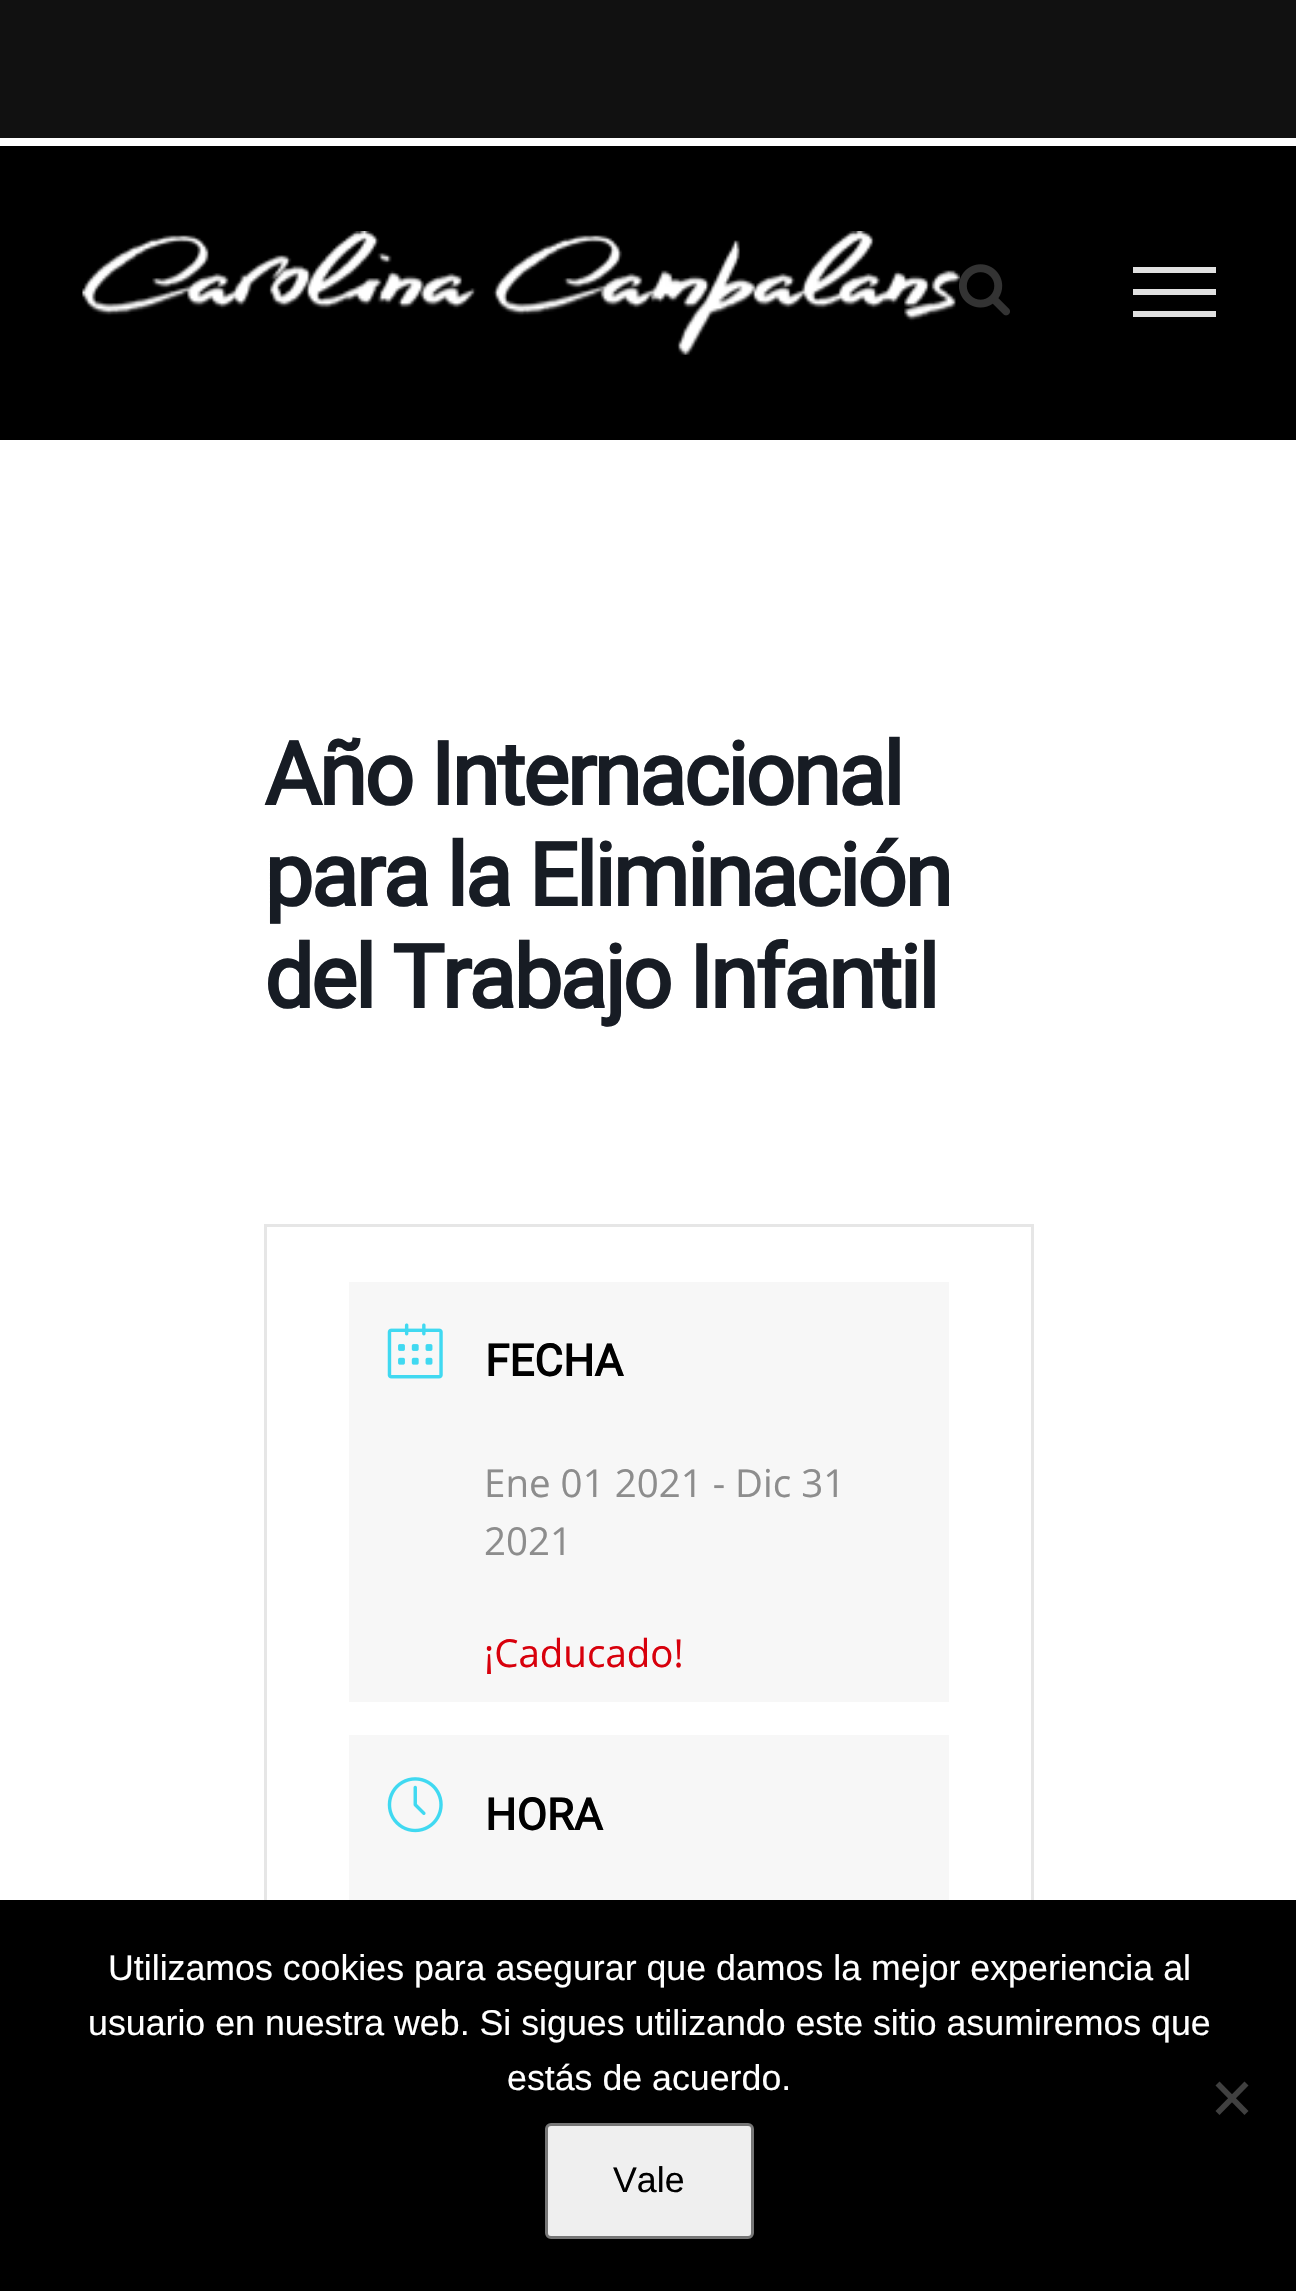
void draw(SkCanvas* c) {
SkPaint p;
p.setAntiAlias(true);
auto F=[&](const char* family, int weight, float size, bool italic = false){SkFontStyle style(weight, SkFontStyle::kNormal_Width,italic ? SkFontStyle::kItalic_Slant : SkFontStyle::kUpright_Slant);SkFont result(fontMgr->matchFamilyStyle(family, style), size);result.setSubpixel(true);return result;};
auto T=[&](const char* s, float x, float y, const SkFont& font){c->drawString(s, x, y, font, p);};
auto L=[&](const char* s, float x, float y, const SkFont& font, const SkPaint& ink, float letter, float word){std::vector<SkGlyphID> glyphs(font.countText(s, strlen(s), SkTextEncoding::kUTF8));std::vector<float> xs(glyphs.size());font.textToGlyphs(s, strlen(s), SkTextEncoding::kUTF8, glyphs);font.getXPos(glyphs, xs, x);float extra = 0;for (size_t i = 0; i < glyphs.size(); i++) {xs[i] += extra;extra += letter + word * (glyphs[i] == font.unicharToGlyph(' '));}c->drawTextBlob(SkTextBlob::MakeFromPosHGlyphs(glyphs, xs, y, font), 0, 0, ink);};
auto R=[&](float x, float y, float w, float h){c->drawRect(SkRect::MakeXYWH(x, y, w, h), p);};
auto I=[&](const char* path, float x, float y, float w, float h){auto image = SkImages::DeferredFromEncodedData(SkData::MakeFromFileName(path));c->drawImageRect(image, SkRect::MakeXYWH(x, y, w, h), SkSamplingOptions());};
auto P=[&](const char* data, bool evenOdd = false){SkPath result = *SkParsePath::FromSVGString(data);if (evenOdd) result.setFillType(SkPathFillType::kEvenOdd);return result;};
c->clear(0xffffffff);
p.setColor(0xff000000);
R(0,146,1296,294);
I("1.png",82,231,878,124);
I("2.png",959,264,51,52);
p.setColor(0xffe0e0e0);
R(1133,267,83,6);
R(1133,289,83,6);
R(1133,311,83,6);
auto f1 = F("Roboto",700,87.5);
p.setColor(0xff171c24);
L("Año Internacional",264,805,f1,p,-2.75,0);
L("para la Eliminación",264,906,f1,p,-2.75,0);
L("del Trabajo Infantil",264,1008,f1,p,-2.75,0);
p.setStroke(true);
p.setStrokeWidth(3);
p.setColor(0xffe6e6e6);
c->drawRect(SkRect::MakeXYWH(265.5,1225.5,767,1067),p);
p.setStroke(false);
p.setColor(0xfff7f7f7);
R(349,1282,600,420);
I("3.png",387,1323,56,56);
auto f2 = F("Roboto",700,44);
p.setColor(0xff000000);
T("FECHA",485,1376,f2);
auto f3 = F("Open Sans",400,38.5);
p.setColor(0xff8d8d8d);
T("Ene 01 2021 - Dic 31",484,1497,f3);
T("2021",484,1555,f3);
p.setColor(0xffd8000c);
T("¡Caducado!",484,1667,f3);
p.setColor(0xfff7f7f7);
R(349,1735,600,165);
I("4.png",387,1777,56,56);
p.setColor(0xff000000);
T("HORA",485,1830,f2);
p.setColor(0xff111111);
R(0,0,1296,138);
p.setColor(0xff000000);
R(0,1900,1296,391);
auto f4 = F("Liberation Sans",400,35.75);
p.setColor(0xffffffff);
T("Utilizamos cookies para asegurar que damos la mejor experiencia al",108,1980,f4);
T("usuario en nuestra web. Si sigues utilizando este sitio asumiremos que",88,2035,f4);
T("estás de acuerdo.",507,2090,f4);
p.setColor(0xff404040);
c->drawPath(P("M1244.5 2081.5l4 4l-29 29.5l-4-4z"),p);
c->drawPath(P("M1215.5 2085.5l4-4l29 29.5l-4 4z"),p);
p.setColor(0xffefefef);
c->drawRoundRect(SkRect::MakeXYWH(546.5,2124.5,206,113),4.5,4.5,p);
p.setStroke(true);
p.setColor(0xff767676);
c->drawRoundRect(SkRect::MakeXYWH(546.5,2124.5,206,113),4.5,4.5,p);
p.setStroke(false);
p.setColor(0xff000000);
T("Vale",613,2192,f4);
}
